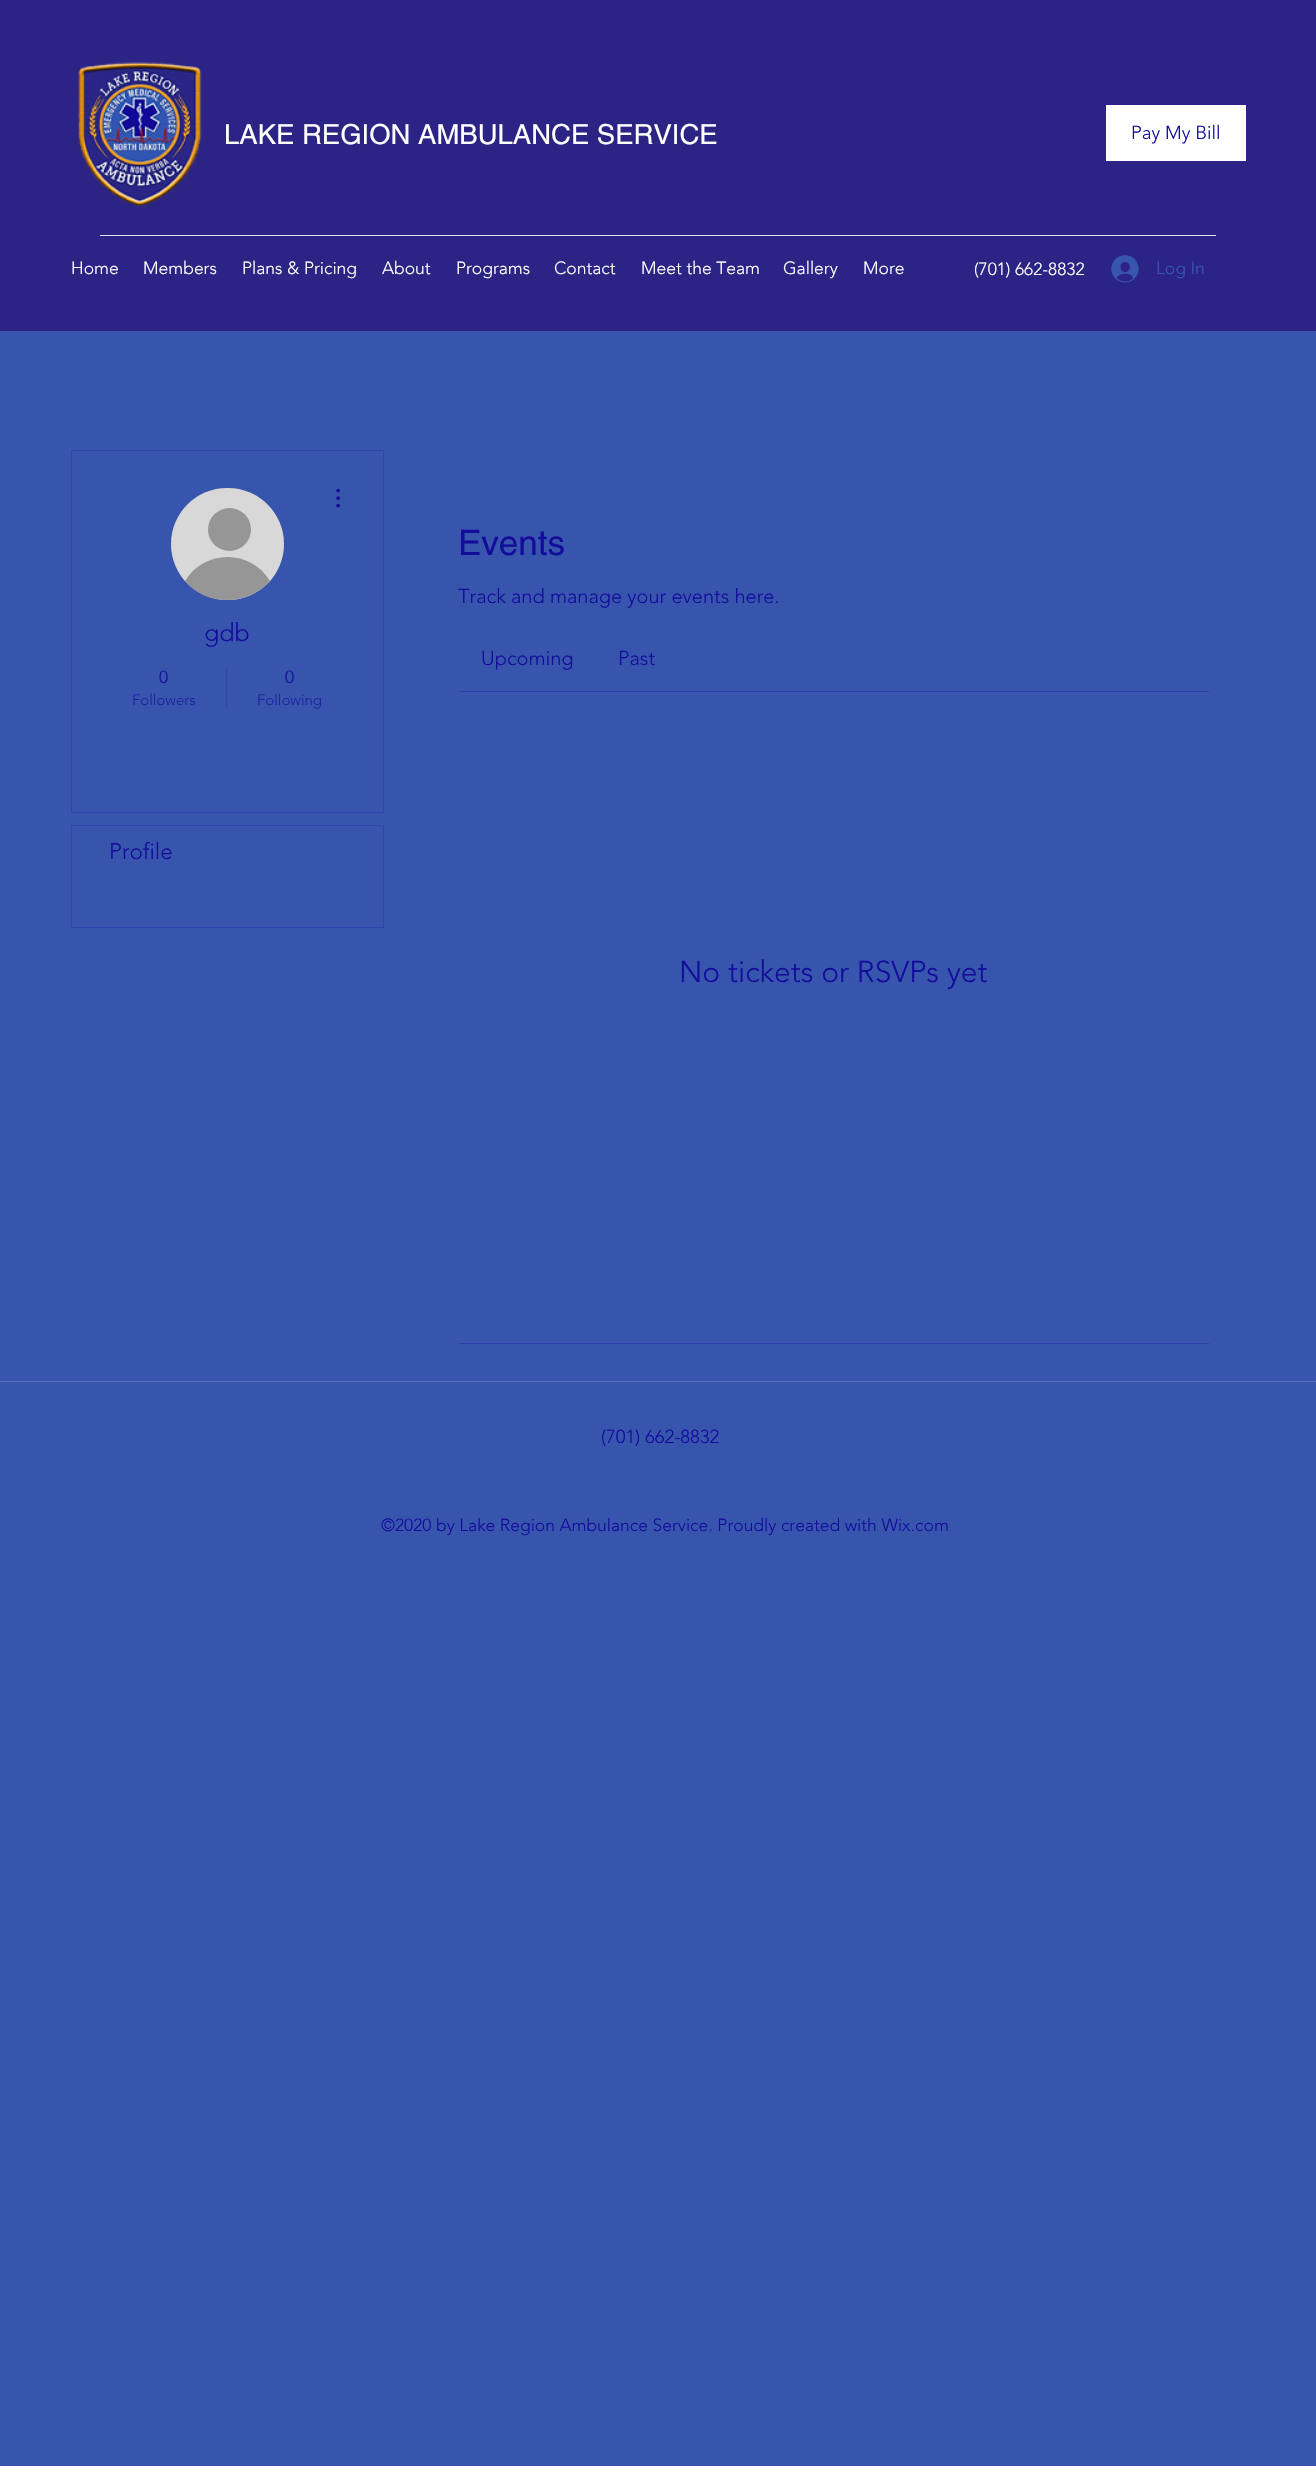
void draw(SkCanvas* c) {
SkPaint p;
p.setAntiAlias(true);
auto F=[&](const char* family, int weight, float size, bool italic = false){SkFontStyle style(weight, SkFontStyle::kNormal_Width,italic ? SkFontStyle::kItalic_Slant : SkFontStyle::kUpright_Slant);SkFont result(fontMgr->matchFamilyStyle(family, style), size);result.setSubpixel(true);return result;};
auto T=[&](const char* s, float x, float y, const SkFont& font){c->drawString(s, x, y, font, p);};
auto R=[&](float x, float y, float w, float h){c->drawRect(SkRect::MakeXYWH(x, y, w, h), p);};
auto Q=[&](float x, float y, float w, float h, float radius){c->drawRoundRect(SkRect::MakeXYWH(x, y, w, h), radius, radius, p);};
auto I=[&](const char* path, float x, float y, float w, float h){auto image = SkImages::DeferredFromEncodedData(SkData::MakeFromFileName(path));c->drawImageRect(image, SkRect::MakeXYWH(x, y, w, h), SkSamplingOptions());};
auto P=[&](const char* data, bool evenOdd = false){SkPath result = *SkParsePath::FromSVGString(data);if (evenOdd) result.setFillType(SkPathFillType::kEvenOdd);return result;};
c->clear(0xff3855ae);
p.setColor(0xff2c2484);
R(0,0,1316,331);
I("1.png",78,62,124,145);
auto f1 = F("helvetica",400,27.5);
p.setColor(0xffffffff);
T("LAKE REGION AMBULANCE SERVICE",224,144,f1);
R(1106,105,140,56);
auto f2 = F("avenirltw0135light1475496",300,18.75);
p.setColor(0xff130c9b);
T("Pay My Bill",1131,139,f2);
p.setColor(0xffdfdeed);
R(100,235,1116,1);
auto f3 = F("avenirltw0135light1475496",300,17.5);
p.setColor(0xffffffff);
T("Home",71,274,f3);
T("Members",143,274,f3);
T("Plans & Pricing",242,274,f3);
T("About",382,274,f3);
T("Programs",456,274,f3);
T("Contact",554,274,f3);
T("Meet the Team",641,274,f3);
T("Gallery",783,274,f3);
T("More",863,274,f3);
T("(701) 662-8832",974,275,f3);
I("2.png",1111,255,28,28);
p.setColor(0xff3855ae);
T("Log In",1156,274,f3);
p.setStroke(true);
p.setStrokeWidth(1);
p.setColor(0xff3146aa);
c->drawRect(SkRect::MakeXYWH(71.5,450.5,312,362),p);
p.setStroke(false);
p.setColor(0xffd8d8d8);
Q(171,488,113,112,56);
p.setColor(0xff969696);
c->drawCircle(229.5,529.5,21.5,p);
c->drawPath(P("M227 600c16 0 32-7 43-19c-19-32-66-32-85 0c10 12 25 19 42 19z"),p);
I("3.png",336,488,4,20);
auto f4 = F("avenirltw0135light1475496",300,25);
p.setColor(0xff130c9b);
T("gdb",204,641,f4);
T("0",159,683,f3);
auto f5 = F("avenirltw0135light1475496",300,15);
p.setColor(0xff1e22a1);
T("Followers",132,705,f5);
p.setColor(0xff3146aa);
R(226,668,1,40);
p.setColor(0xff130c9b);
T("0",285,683,f3);
p.setColor(0xff1e22a1);
T("Following",257,705,f5);
p.setStroke(true);
p.setColor(0xff3146aa);
c->drawRect(SkRect::MakeXYWH(71.5,825.5,312,102),p);
auto f6 = F("avenirltw0135light1475496",300,22.5);
p.setStroke(false);
p.setColor(0xff130c9b);
T("Profile",109,859,f6);
auto f7 = F("helvetica",400,35);
T("Events",458,555,f7);
auto f8 = F("avenirltw0135light1475496",300,20);
T("Track and manage your events here.",458,603,f8);
T("Upcoming",481,665,f8);
T("Past",618,665,f8);
p.setColor(0xff2d3fa8);
R(459,691,750,1);
auto f9 = F("avenirltw0135light1475496",300,30);
p.setColor(0xff130c9b);
T("No tickets or RSVPs yet",679,982,f9);
p.setColor(0xff2d3fa8);
R(459,1343,750,1);
p.setColor(0xff566fba);
R(0,1381,1316,1);
p.setColor(0xff130c9b);
T("(701) 662-8832",601,1443,f2);
T("©2020 by Lake Region Ambulance Service. Proudly created with Wix.com",381,1531,f3);
}
